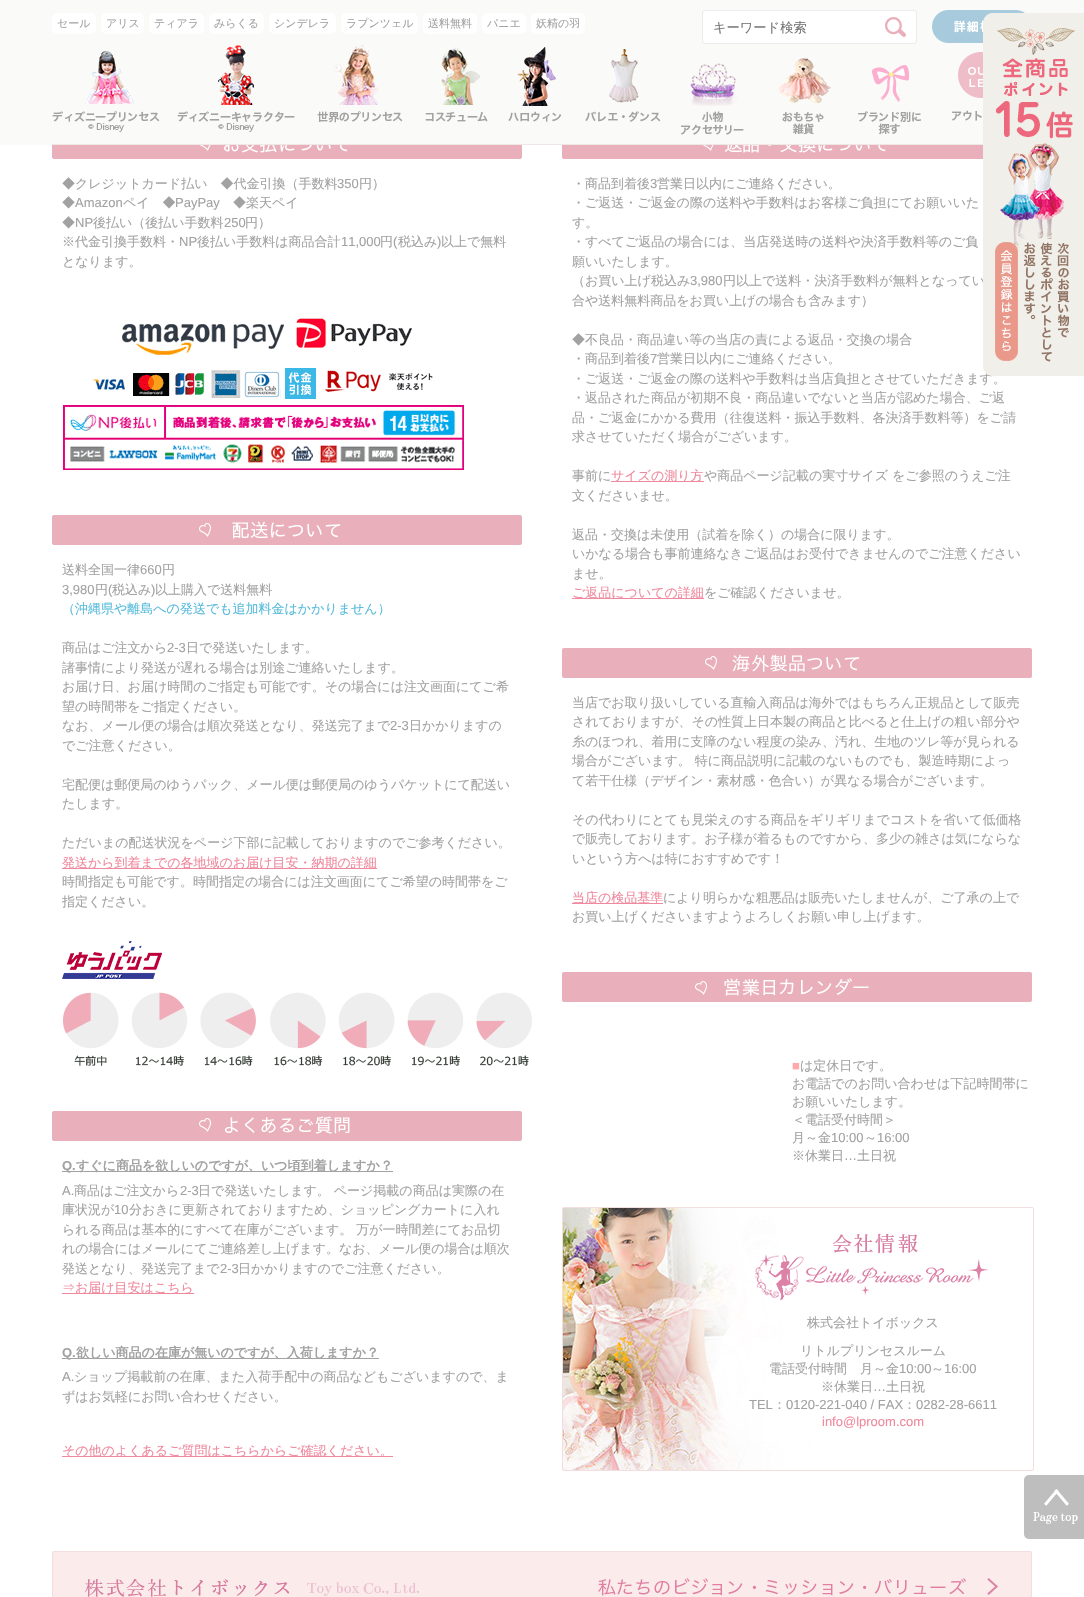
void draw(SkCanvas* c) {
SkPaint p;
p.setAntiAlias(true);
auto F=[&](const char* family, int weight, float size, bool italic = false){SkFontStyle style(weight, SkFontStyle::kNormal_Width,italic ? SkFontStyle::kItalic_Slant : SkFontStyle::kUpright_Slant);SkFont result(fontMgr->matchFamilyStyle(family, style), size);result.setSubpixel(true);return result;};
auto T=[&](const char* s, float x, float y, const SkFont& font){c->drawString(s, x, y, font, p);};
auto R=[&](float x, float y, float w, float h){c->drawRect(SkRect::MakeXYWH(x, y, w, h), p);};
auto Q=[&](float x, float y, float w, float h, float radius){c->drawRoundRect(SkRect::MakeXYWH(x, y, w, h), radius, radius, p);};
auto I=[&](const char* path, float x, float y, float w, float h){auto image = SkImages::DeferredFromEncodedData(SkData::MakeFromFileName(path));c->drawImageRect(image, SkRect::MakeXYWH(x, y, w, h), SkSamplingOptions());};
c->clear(0xffffffff);
p.setColor(0xfffafaf9);
R(0,0,1084,145);
p.setColor(0xffffffff);
Q(52,13,44,21,5);
auto f1 = F("WenQuanYi Zen Hei",500,11);
p.setColor(0xffa2a2a2);
T("セール",57,27,f1);
p.setColor(0xffffffff);
Q(101,13,43,21,5);
p.setColor(0xffa2a2a2);
T("アリス",106,27,f1);
p.setColor(0xffffffff);
Q(149,13,55,21,5);
p.setColor(0xffa2a2a2);
T("ティアラ",154,27,f1);
p.setColor(0xffffffff);
Q(209,13,55,21,5);
p.setColor(0xffa2a2a2);
T("みらくる",214,27,f1);
p.setColor(0xffffffff);
Q(269,13,67,21,5);
p.setColor(0xffa2a2a2);
T("シンデレラ",274,27,f1);
p.setColor(0xffffffff);
Q(341,13,77,21,5);
p.setColor(0xffa2a2a2);
T("ラプンツェル",346,27,f1);
p.setColor(0xffffffff);
Q(423,13,54,21,5);
p.setColor(0xffa2a2a2);
T("送料無料",428,27,f1);
p.setColor(0xffffffff);
Q(482,13,44,21,5);
p.setColor(0xffa2a2a2);
T("パニエ",487,27,f1);
p.setColor(0xffffffff);
Q(531,13,54,21,5);
p.setColor(0xffa2a2a2);
T("妖精の羽",536,27,f1);
p.setColor(0xffffffff);
c->drawRoundRect(SkRect::MakeXYWH(702.5,10.5,214,33),2.5,2.5,p);
p.setStroke(true);
p.setStrokeWidth(1);
p.setColor(0xffececec);
c->drawRoundRect(SkRect::MakeXYWH(702.5,10.5,214,33),2.5,2.5,p);
auto f2 = F("WenQuanYi Zen Hei",500,13.25);
p.setStroke(false);
p.setColor(0xff757575);
T("キーワード検索",713,32,f2);
I("1.png",885,17,21,20);
I("2.png",932,10,100,33);
I("3.png",52,51,115,94);
I("4.png",167,45,142,100);
I("5.png",309,44,105,101);
I("6.png",414,47,87,98);
I("7.png",501,47,70,98);
I("8.png",571,49,101,96);
I("9.png",672,63,83,82);
I("10.png",755,58,92,87);
I("11.png",847,65,88,80);
I("12.png",935,52,48,93);
auto f3 = F("WenQuanYi Zen Hei",500,13);
p.setColor(0xffa2a2a2);
T("円以上で送料・決済手数料が無料となってい",723,285,f3);
T("・ご返送・ご返金の際の送料や手数料は当店負担とさせていただきます。",572,383,f3);
I("13.png",983,13,101,363);
I("14.png",52,145,470,14);
T("◆クレジットカード払い　◆代金引換（手数料",62,188,f3);
auto f4 = F("Liberation Sans",400,13);
T("350",337,188,f4);
T("円）",359,188,f3);
T("◆",62,207,f3);
T("Amazon",75,207,f4);
T("ペイ　◆",123,207,f3);
T("PayPay",175,207,f4);
T("◆楽天ペイ",233,207,f3);
T("◆",62,227,f3);
T("NP",75,227,f4);
T("後払い（後払い手数料",93,227,f3);
T("250",224,227,f4);
T("円）",245,227,f3);
T("※代金引換手数料・",62,246,f3);
T("NP",179,246,f4);
T("後払い手数料は商品合計",197,246,f3);
T("11,000",341,246,f4);
T("円",380,246,f3);
T("(",393,246,f4);
T("税込み",398,246,f3);
T(")",437,246,f4);
T("以上で無料",441,246,f3);
T("となります。",62,266,f3);
I("15.png",63,318,401,152);
I("16.png",52,515,470,30);
T("送料全国一律",62,574,f3);
T("660",140,574,f4);
T("円",162,574,f3);
T("3,980",62,594,f4);
T("円",95,594,f3);
T("(",108,594,f4);
T("税込み",112,594,f3);
T(")",151,594,f4);
T("以上購入で送料無料",155,594,f3);
p.setColor(0xff56bbdc);
T("（沖縄県や離島への発送でも追加料金はかかりません）",62,613,f3);
p.setColor(0xffa2a2a2);
T("商品はご注文から",62,652,f3);
T("2-3",167,652,f4);
T("日で発送いたします。",186,652,f3);
T("諸事情により発送が遅れる場合は別途ご連絡いたします。",62,672,f3);
T("お届け日、お届け時間のご指定も可能です。その場合には注文画面にてご希",62,691,f3);
T("望の時間帯をご指定ください。",62,711,f3);
T("なお、メール便の場合は順次発送となり、発送完了まで",62,730,f3);
T("2-3",390,730,f4);
T("日かかりますの",409,730,f3);
T("でご注意ください。",62,750,f3);
T("宅配便は郵便局のゆうパック、メール便は郵便局のゆうパケットにて配送い",62,789,f3);
T("たします。",62,808,f3);
T("ただいまの配送状況をページ下部に記載しておりますのでご参考ください。",62,847,f3);
p.setColor(0xfff0899d);
R(62,868,315,1);
T("発送から到着までの各地域のお届け目安・納期の詳細",62,867,f3);
p.setColor(0xffa2a2a2);
T("時間指定も可能です。時間指定の場合には注文画面にてご希望の時間帯をご",62,886,f3);
T("指定ください。",62,906,f3);
I("17.png",62,941,470,125);
I("18.png",52,1111,470,30);
R(62,1171,331,1);
auto f5 = F("Liberation Sans",700,13);
T("Q.",62,1170,f5);
auto f6 = F("WenQuanYi Zen Hei",700,13);
T("すぐに商品を欲しいのですが、いつ頃到着しますか？",76,1170,f6);
T("A.",62,1195,f4);
T("商品はご注文から",74,1195,f3);
T("2-3",180,1195,f4);
T("日で発送いたします。 ページ掲載の商品は実際の在",198,1195,f3);
T("庫状況が",62,1214,f3);
T("10",114,1214,f4);
T("分おきに更新されておりますため、ショッピングカートに入れ",129,1214,f3);
T("られる商品は基本的にすべて在庫がございます。 万が一時間差にてお品切",62,1234,f3);
T("れの場合にはメールにてご連絡差し上げます。なお、メール便の場合は順次",62,1253,f3);
T("発送となり、発送完了まで",62,1273,f3);
T("2-3",220,1273,f4);
T("日かかりますのでご注意ください。",238,1273,f3);
p.setColor(0xfff0899d);
R(62,1293,132,1);
T("⇒お届け目安はこちら",62,1292,f3);
p.setColor(0xffa2a2a2);
R(62,1358,317,1);
T("Q.",62,1357,f5);
T("欲しい商品の在庫が無いのですが、入荷しますか？",76,1357,f6);
T("A.",62,1381,f4);
T("ショップ掲載前の在庫、また入荷手配中の商品などもございますので、ま",74,1381,f3);
T("ずはお気軽にお問い合わせください。",62,1401,f3);
p.setColor(0xfff0899d);
R(62,1456,331,1);
T("その他のよくあるご質問はこちらからご確認ください。",62,1455,f3);
I("19.png",562,145,421,14);
p.setColor(0xffa2a2a2);
T("・商品到着後",572,188,f3);
T("3",650,188,f4);
T("営業日以内にご連絡ください。",657,188,f3);
T("・ご返送・ご返金の際の送料や手数料はお客様ご負担にてお願いいた",572,207,f3);
T("す。",572,227,f3);
T("・すべてご返品の場合には、当店発送時の送料や決済手数料等のご負",572,246,f3);
T("願いいたします。",572,266,f3);
T("（お買い上げ税込み",572,285,f3);
T("3,980",690,285,f4);
T("合や送料無料商品をお買い上げの場合も含みます）",572,305,f3);
T("◆不良品・商品違い等の当店の責による返品・交換の場合",572,344,f3);
T("・商品到着後",572,363,f3);
T("7",650,363,f4);
T("営業日以内にご連絡ください。",657,363,f3);
T("・返品された商品が初期不良・商品違いでないと当店が認めた場合、ご返",572,402,f3);
T("品・ご返金にかかる費用（往復送料・振込手数料、各決済手数料等）をご請",572,422,f3);
T("求させていただく場合がございます。",572,441,f3);
T("事前に",572,480,f3);
p.setColor(0xfff0899d);
R(611,481,93,1);
T("サイズの測り方",611,480,f3);
p.setColor(0xffa2a2a2);
T("や商品ページ記載の実寸サイズ をご参照のうえご注",704,480,f3);
T("文くださいませ。",572,500,f3);
T("返品・交換は未使用（試着を除く）の場合に限ります。",572,539,f3);
T("いかなる場合も事前連絡なきご返品はお受付できませんのでご注意ください",572,558,f3);
T("ませ。",572,578,f3);
p.setColor(0xfff0899d);
R(572,598,132,1);
T("ご返品についての詳細",572,597,f3);
p.setColor(0xffa2a2a2);
T("をご確認くださいませ。",704,597,f3);
I("20.png",562,648,470,30);
T("当店でお取り扱いしている直輸入商品は海外ではもちろん正規品として販売",572,707,f3);
T("されておりますが、その性質上日本製の商品と比べると仕上げの粗い部分や",572,726,f3);
T("糸のほつれ、着用に支障のない程度の染み、汚れ、生地のツレ等が見られる",572,746,f3);
T("場合がございます。 特に商品説明に記載のないものでも、製造時期によっ",572,765,f3);
T("て若干仕様（デザイン・素材感・色合い）が異なる場合がございます。",572,785,f3);
T("その代わりにとても見栄えのする商品をギリギリまでコストを省いて低価格",572,824,f3);
T("で販売しております。お子様が着るものですから、多少の雑さは気にならな",572,843,f3);
T("いという方へは特におすすめです！",572,863,f3);
p.setColor(0xfff0899d);
R(572,903,91,1);
T("当店の検品基準",572,902,f3);
p.setColor(0xffa2a2a2);
T("により明らかな粗悪品は販売いたしませんが、ご了承の上で",663,902,f3);
T("お買い上げくださいますようよろしくお願い申し上げます。",572,921,f3);
I("21.png",562,972,470,30);
p.setColor(0xffffa9a9);
T("■",792,1070,f4);
p.setColor(0xffa2a2a2);
T("は定休日です。",800,1070,f3);
T("お電話でのお問い合わせは下記時間帯に",792,1088,f3);
T("お願いいたします。",792,1106,f3);
T("＜電話受付時間＞",792,1124,f3);
T("月～金",792,1142,f3);
T("10:00",831,1142,f4);
T("～",864,1142,f3);
T("16:00",877,1142,f4);
T("※休業日",792,1160,f3);
T("…",844,1160,f4);
T("土日祝",857,1160,f3);
I("22.png",563,1208,468,262);
p.setStroke(true);
p.setColor(0xfff2dede);
c->drawRoundRect(SkRect::MakeXYWH(562.5,1207.5,471,263),1.5,1.5,p);
I("23.png",755,1233,234,67);
p.setStroke(false);
p.setColor(0xffa2a2a2);
T("株式会社トイボックス",807,1327,f3);
T("リトルプリンセスルーム",800,1355,f3);
T("電話受付時間　月～金",769,1373,f3);
T("10:00",899,1373,f4);
T("～",931,1373,f3);
T("16:00",944,1373,f4);
T("※休業日",821,1391,f3);
T("…",873,1391,f4);
T("土日祝",886,1391,f3);
T("TEL",749,1409,f4);
T("：",773,1409,f3);
T("0120-221-040 / FAX",786,1409,f4);
T("：",903,1409,f3);
T("0282-28-6611",916,1409,f4);
p.setColor(0xfff0899d);
T("info@lproom.com",822,1426,f4);
I("24.png",52,1551,980,46);
I("25.png",1024,1475,60,64);
}
